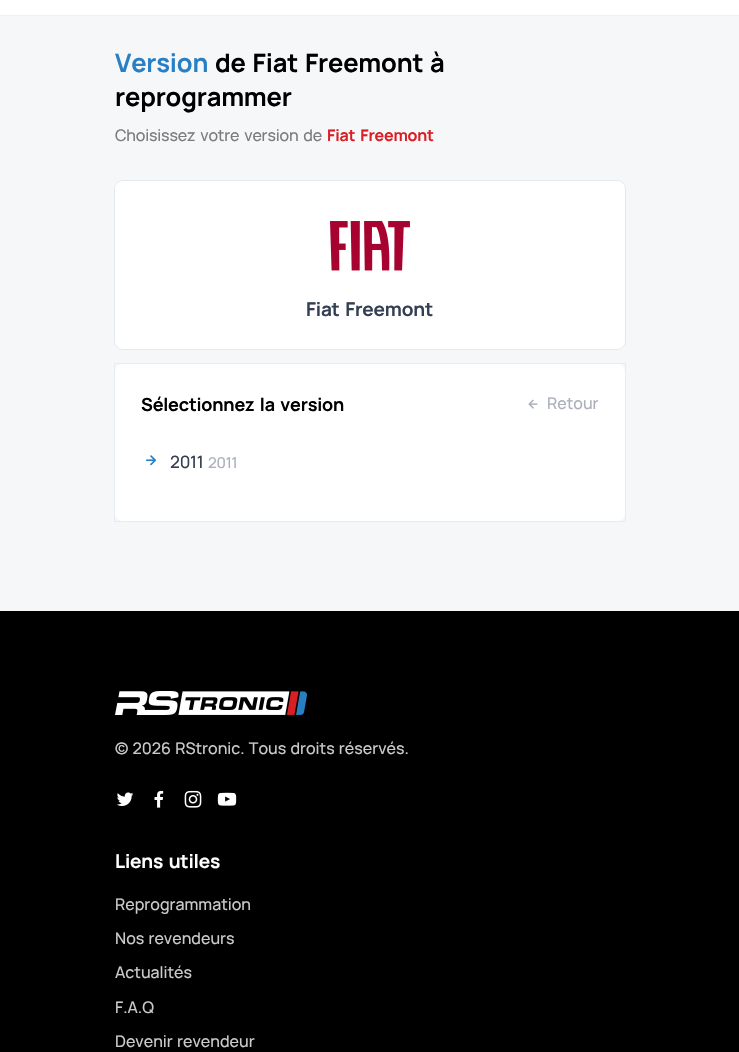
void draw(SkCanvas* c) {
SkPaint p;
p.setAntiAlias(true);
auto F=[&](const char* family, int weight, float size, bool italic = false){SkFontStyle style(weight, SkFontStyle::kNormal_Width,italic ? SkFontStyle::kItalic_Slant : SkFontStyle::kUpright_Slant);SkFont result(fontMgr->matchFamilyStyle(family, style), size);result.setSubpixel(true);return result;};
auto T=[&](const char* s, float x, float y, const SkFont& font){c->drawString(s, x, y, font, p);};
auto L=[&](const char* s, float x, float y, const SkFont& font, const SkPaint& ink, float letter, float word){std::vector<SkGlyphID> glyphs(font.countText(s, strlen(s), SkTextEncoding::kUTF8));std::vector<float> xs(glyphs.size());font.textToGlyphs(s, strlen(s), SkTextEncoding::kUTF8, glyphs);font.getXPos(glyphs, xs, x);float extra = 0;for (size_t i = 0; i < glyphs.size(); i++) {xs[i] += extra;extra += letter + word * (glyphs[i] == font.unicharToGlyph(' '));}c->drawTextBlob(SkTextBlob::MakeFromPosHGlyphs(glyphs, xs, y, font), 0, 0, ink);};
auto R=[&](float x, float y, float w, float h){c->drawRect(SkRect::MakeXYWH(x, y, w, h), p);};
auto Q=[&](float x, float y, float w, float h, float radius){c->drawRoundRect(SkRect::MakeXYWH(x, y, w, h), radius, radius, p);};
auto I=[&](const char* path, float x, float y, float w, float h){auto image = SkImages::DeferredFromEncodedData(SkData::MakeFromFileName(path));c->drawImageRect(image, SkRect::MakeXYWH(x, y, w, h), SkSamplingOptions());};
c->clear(0xffffffff);
p.setColor(0xffedeff4);
R(0,15,739,1);
p.setColor(0xfff6f7f9);
R(0,16,739,595);
auto f1 = F("Manrope",700,25.5);
p.setColor(0xff297fc3);
L("Version",115,72,f1,p,-.2,0);
p.setColor(0xff000000);
L("de Fiat Freemont à",215,72,f1,p,-.2,2);
L("reprogrammer",115,106,f1,p,-.2,0);
auto f2 = F("Manrope",500,16);
p.setColor(0xff7b7c7d);
L("Choisissez votre version de",115,141,f2,p,-.2,2);
auto f3 = F("Manrope",700,16);
p.setColor(0xffd91f26);
L("Fiat Freemont",327,141,f3,p,-.2,2);
p.setStroke(true);
p.setStrokeWidth(1);
p.setColor(0xffe4e8ee);
c->drawRoundRect(SkRect::MakeXYWH(114.5,180.5,511,169),8.5,8.5,p);
p.setStroke(false);
p.setColor(0xffffffff);
Q(115,181,510,168,8);
I("1.png",330,221,80,50);
auto f4 = F("Manrope",700,19);
p.setColor(0xff343f52);
L("Fiat Freemont",306,316,f4,p,-.2,2);
p.setStroke(true);
p.setColor(0x0f083c82);
c->drawRect(SkRect::MakeXYWH(114.5,363.5,511,158),p);
p.setStroke(false);
p.setColor(0xffffffff);
Q(115,364,510,157,8);
auto f5 = F("Manrope",700,18);
p.setColor(0xff000000);
L("Sélectionnez la version",141,411,f5,p,-.2,2);
I("2.png",528,399,10,10);
p.setColor(0xffaab0bc);
T("Retour",547,409,f2);
I("3.png",146,455,10,11);
auto f6 = F("Manrope",500,17);
p.setColor(0xff343f52);
L("2011",170,468,f6,p,-.2,0);
auto f7 = F("Manrope",500,15);
p.setColor(0xffaab0bc);
L("2011",208,468,f7,p,-.2,0);
p.setColor(0xff000000);
R(0,611,739,441);
I("4.png",115,691,192,24);
p.setColor(0xffcacaca);
L("© 2026 RStronic. Tous droits réservés.",115,754,f2,p,0,1);
I("5.png",116,792,18,14);
I("6.png",154,790,10,18);
I("7.png",184,790,18,18);
I("8.png",217,792,20,14);
p.setColor(0xffffffff);
L("Liens utiles",115,868,f4,p,-.2,2);
p.setColor(0xffcacaca);
T("Reprogrammation",115,910,f2);
L("Nos revendeurs",115,944,f2,p,0,1);
T("Actualités",115,978,f2);
T("F.A.Q",115,1013,f2);
L("Devenir revendeur",115,1047,f2,p,0,1);
}
